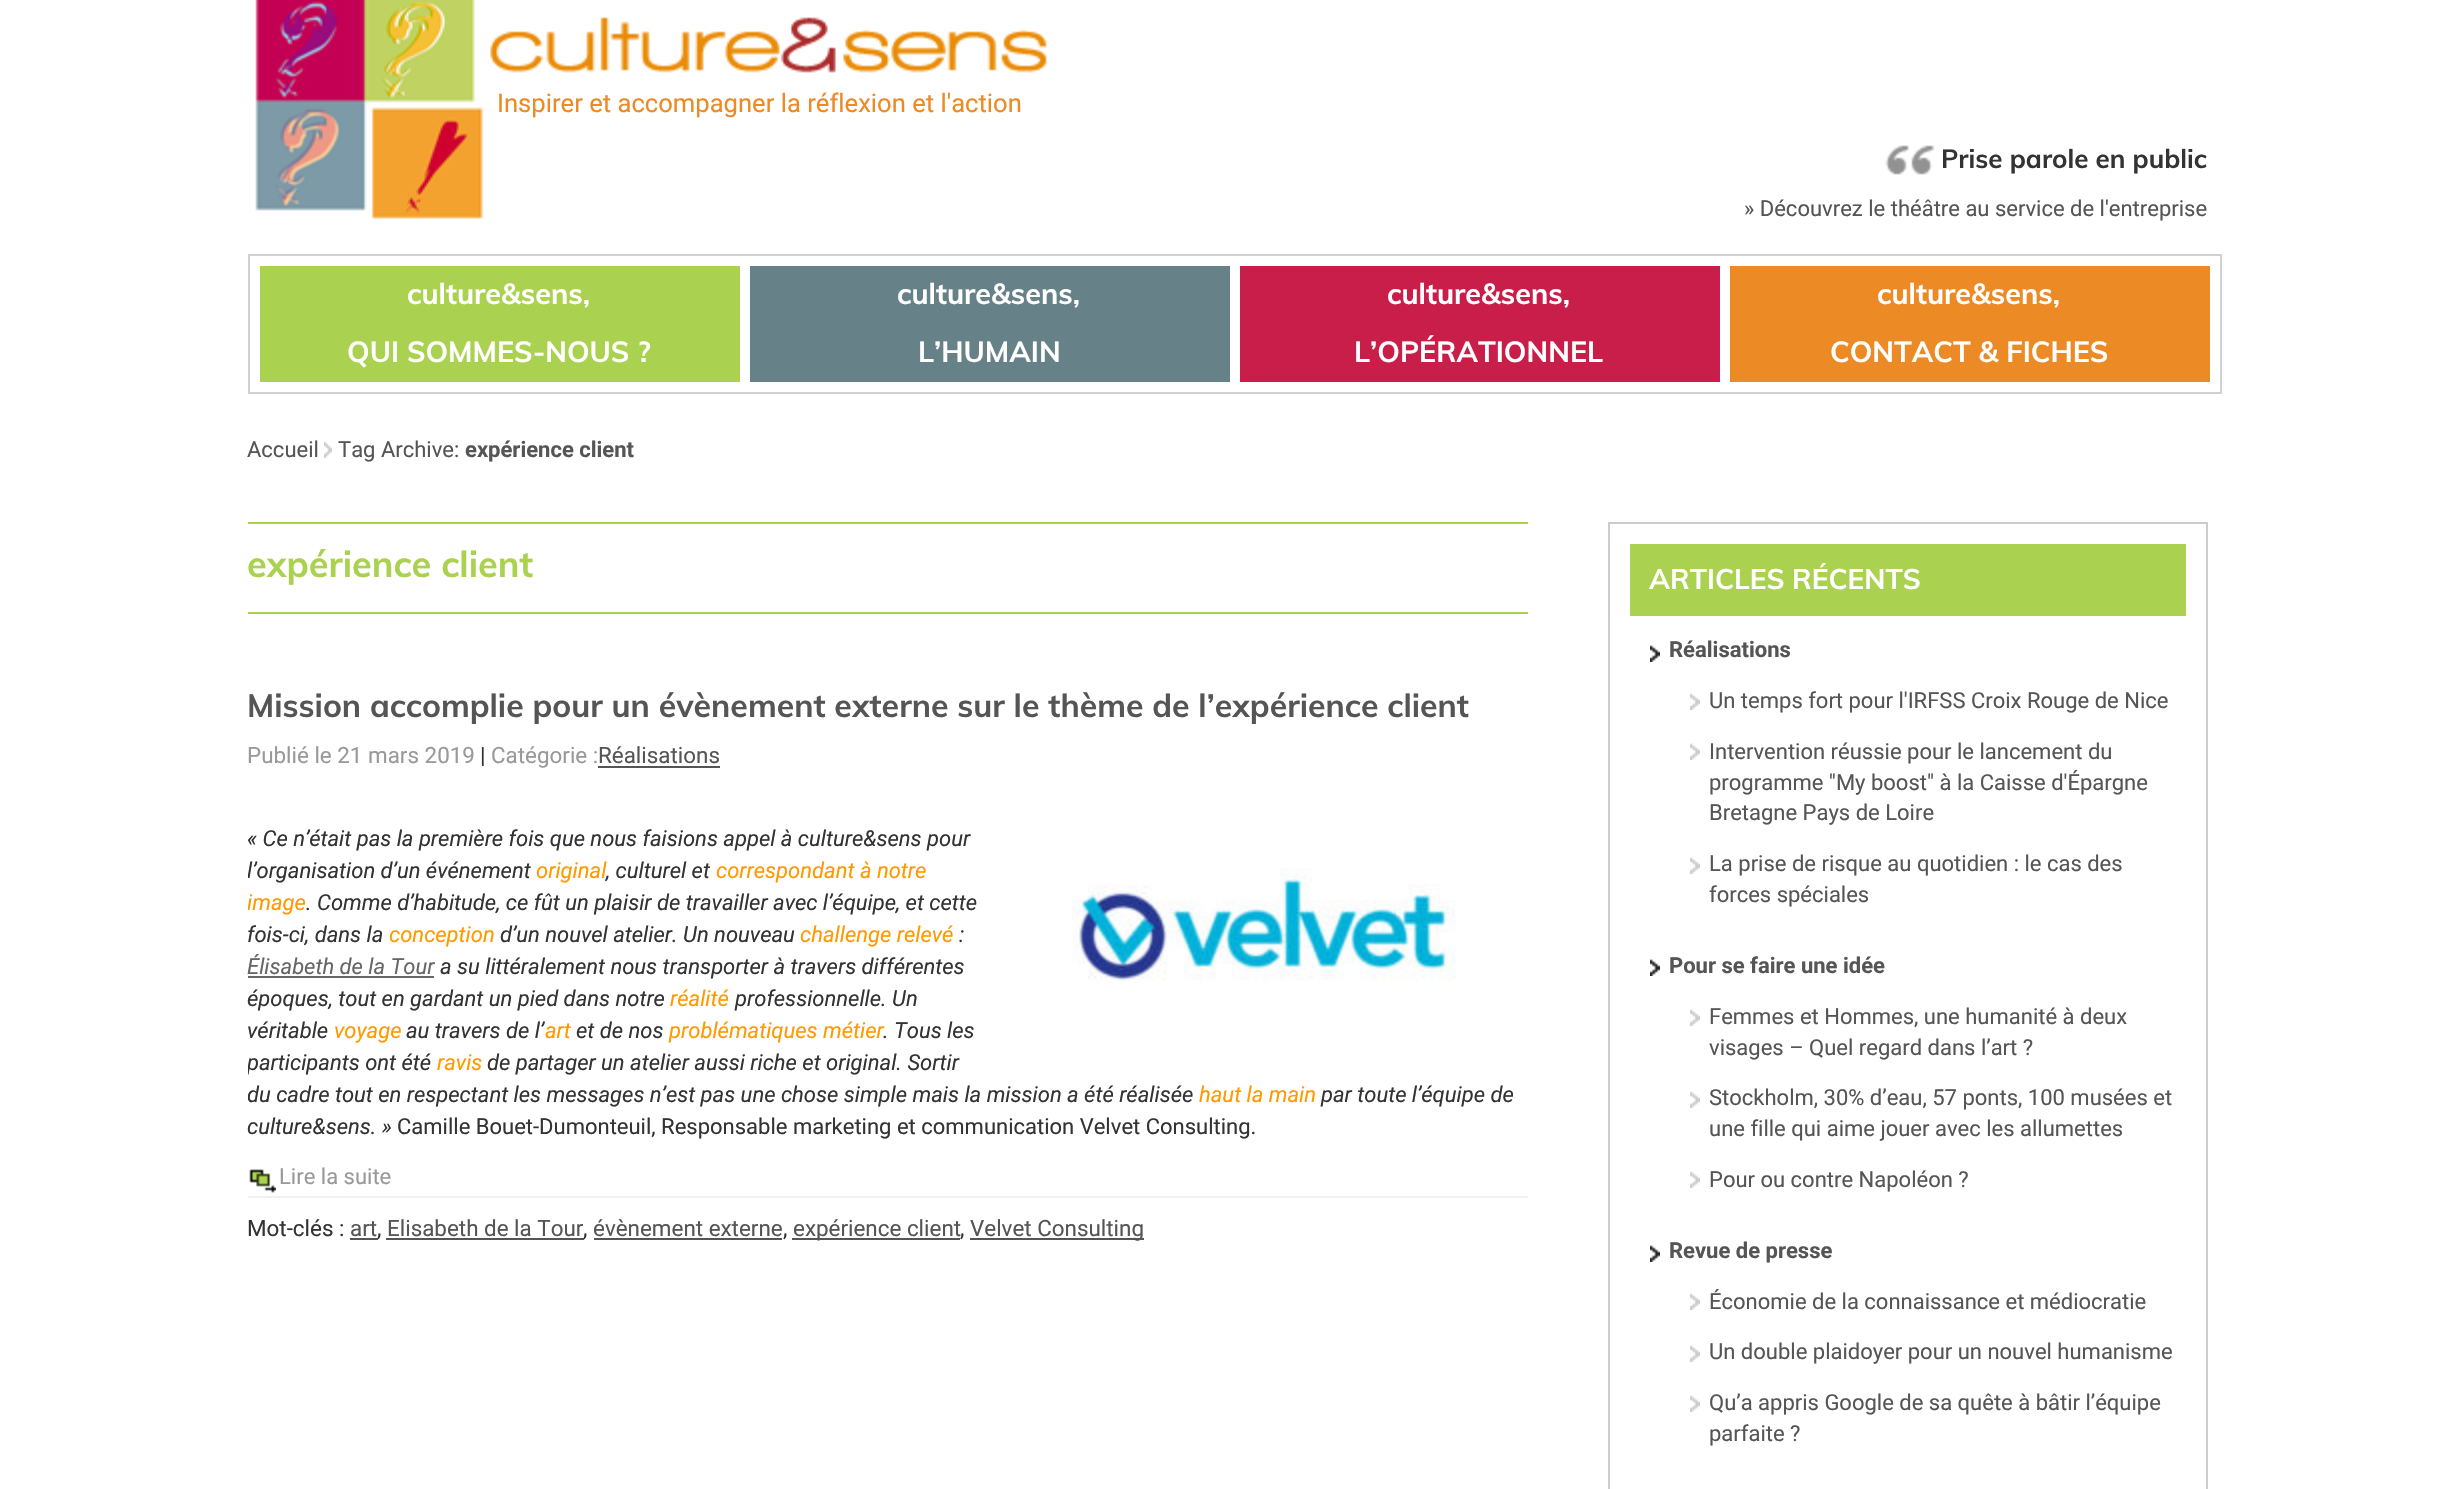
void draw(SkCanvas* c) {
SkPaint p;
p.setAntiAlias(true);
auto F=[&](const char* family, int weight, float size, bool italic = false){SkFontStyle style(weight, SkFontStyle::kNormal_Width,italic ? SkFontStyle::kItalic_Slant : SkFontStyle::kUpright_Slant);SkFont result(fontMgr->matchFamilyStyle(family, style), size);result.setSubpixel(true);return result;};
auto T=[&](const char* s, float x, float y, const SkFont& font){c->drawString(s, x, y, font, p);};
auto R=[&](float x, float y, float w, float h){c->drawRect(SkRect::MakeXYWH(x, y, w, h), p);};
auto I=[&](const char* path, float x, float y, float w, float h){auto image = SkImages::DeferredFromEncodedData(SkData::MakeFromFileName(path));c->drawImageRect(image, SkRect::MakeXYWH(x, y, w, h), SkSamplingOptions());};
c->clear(0xffffffff);
I("1.png",255,0,792,220);
auto f1 = F("Roboto",400,25.6);
p.setColor(0xffec8a25);
T("Inspirer et accompagner la réflexion et l'action",497,112,f1);
I("2.png",1885,145,50,30);
auto f2 = F("Muli",700,26);
p.setColor(0xff333333);
T("Prise parole en public",1941,168,f2);
auto f3 = F("Roboto",400,22);
p.setColor(0xff555555);
T("» Découvrez le théâtre au service de l'entreprise",1744,216,f3);
p.setStroke(true);
p.setStrokeWidth(2);
p.setColor(0xffd1d1d1);
c->drawRect(SkRect::MakeXYWH(249,255,1972,138),p);
p.setStroke(false);
p.setColor(0xffabd150);
R(260,266,480,116);
auto f4 = F("Muli",700,28.75);
p.setColor(0xffffffff);
T("culture&sens,",407,304,f4);
T("QUI SOMMES-NOUS ?",347,362,f4);
p.setColor(0xff668187);
R(750,266,480,116);
p.setColor(0xffffffff);
T("culture&sens,",897,304,f4);
T("L’HUMAIN",918,362,f4);
p.setColor(0xffc91e4a);
R(1240,266,480,116);
p.setColor(0xffffffff);
T("culture&sens,",1387,304,f4);
T("L’OPÉRATIONNEL",1354,362,f4);
p.setColor(0xffec8a25);
R(1730,266,480,116);
p.setColor(0xffffffff);
T("culture&sens,",1877,304,f4);
T("CONTACT & FICHES",1830,362,f4);
p.setColor(0xff555555);
T("Accueil",247,457,f3);
I("3.png",324,441,8,17);
T("Tag Archive:",338,457,f3);
auto f5 = F("Roboto",700,22);
T("expérience client",465,457,f5);
p.setColor(0xffabd150);
R(248,522,1280,2);
R(248,612,1280,2);
auto f6 = F("Muli",700,36);
T("expérience client",247,577,f6);
auto f7 = F("Muli",700,32);
p.setColor(0xff555555);
T("Mission accomplie pour un évènement externe sur le thème de l’expérience client",247,717,f7);
auto f8 = F("Roboto",400,22.4);
p.setColor(0xff999999);
T("Publié le 21 mars 2019",247,763,f8);
p.setColor(0xff333333);
T("|",480,763,f8);
p.setColor(0xff999999);
T("Catégorie :",491,763,f8);
p.setColor(0xff555555);
T("Réalisations",598,763,f8);
R(598,766,122,2);
auto f9 = F("Roboto",400,22,true);
p.setColor(0xff333333);
T("« Ce n’était pas la première fois que nous faisions appel à culture&sens pour",247,846,f9);
c->save();
c->clipRect(SkRect::MakeXYWH(248,502,1280,870));
T("l’organisation d’un événement",247,878,f9);
c->restore();
p.setColor(0xffff9900);
T("original",536,878,f9);
p.setColor(0xff333333);
T(", culturel et",606,878,f9);
p.setColor(0xffff9900);
T("correspondant à notre",716,878,f9);
c->save();
c->clipRect(SkRect::MakeXYWH(248,502,1280,870));
T("image",247,910,f9);
c->restore();
p.setColor(0xff333333);
T(". Comme d’habitude, ce fût un plaisir de travailler avec l’équipe, et cette",306,910,f9);
T("fois-ci, dans la",247,942,f9);
p.setColor(0xffff9900);
T("conception",389,942,f9);
p.setColor(0xff333333);
T("d’un nouvel atelier. Un nouveau",500,942,f9);
p.setColor(0xffff9900);
T("challenge relevé",800,942,f9);
p.setColor(0xff333333);
T(":",959,942,f9);
p.setColor(0xff666666);
T("Élisabeth de la Tour",247,974,f9);
p.setColor(0xff333333);
T("a su littéralement nous transporter à travers différentes",440,974,f9);
p.setColor(0xff666666);
R(248,976,186,2);
p.setColor(0xff333333);
T("époques, tout en gardant un pied dans notre",247,1006,f9);
p.setColor(0xffff9900);
T("réalité",670,1006,f9);
p.setColor(0xff333333);
T("professionnelle. Un",735,1006,f9);
T("véritable",247,1038,f9);
p.setColor(0xffff9900);
T("voyage",334,1038,f9);
p.setColor(0xff333333);
T("au travers de l’",406,1038,f9);
p.setColor(0xffff9900);
T("art",545,1038,f9);
p.setColor(0xff333333);
T("et de nos",576,1038,f9);
p.setColor(0xffff9900);
T("problématiques métier",669,1038,f9);
p.setColor(0xff333333);
T(". Tous les",883,1038,f9);
c->save();
c->clipRect(SkRect::MakeXYWH(248,502,1280,870));
T("participants ont été",247,1070,f9);
c->restore();
p.setColor(0xffff9900);
T("ravis",437,1070,f9);
p.setColor(0xff333333);
T("de partager un atelier aussi riche et original. Sortir",487,1070,f9);
c->save();
c->clipRect(SkRect::MakeXYWH(248,502,1280,870));
T("du cadre tout en respectant les messages n’est pas une chose simple mais la mission a été réalisée",247,1102,f9);
c->restore();
p.setColor(0xffff9900);
T("haut la main",1199,1102,f9);
p.setColor(0xff333333);
T("par toute l’équipe de",1321,1102,f9);
T("culture&sens. »",247,1134,f9);
T("Camille Bouet-Dumonteuil, Responsable marketing et communication Velvet Consulting.",397,1134,f3);
I("4.png",1072,868,384,113);
I("5.png",249,1169,27,24);
p.setColor(0xff999999);
T("Lire la suite",279,1184,f3);
p.setColor(0xfff1f1f1);
R(248,1196,1280,2);
p.setColor(0xff333333);
T("Mot-clés :",247,1236,f8);
p.setColor(0xff555555);
T("art",350,1236,f8);
R(350,1238,28,2);
p.setColor(0xff333333);
T(",",377,1236,f8);
p.setColor(0xff555555);
T("Elisabeth de la Tour",387,1236,f8);
R(386,1238,198,2);
p.setColor(0xff333333);
T(",",583,1236,f8);
p.setColor(0xff555555);
T("évènement externe",593,1236,f8);
R(594,1238,188,2);
p.setColor(0xff333333);
T(",",783,1236,f8);
p.setColor(0xff555555);
R(792,1238,168,2);
T("expérience client",793,1236,f8);
p.setColor(0xff333333);
T(",",960,1236,f8);
p.setColor(0xff555555);
R(970,1238,174,2);
T("Velvet Consulting",970,1236,f8);
p.setStroke(true);
p.setColor(0xffcccccc);
c->drawRect(SkRect::MakeXYWH(1609,523,598,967),p);
p.setStroke(false);
p.setColor(0xffabd150);
R(1630,544,556,72);
auto f10 = F("Muli",700,28);
p.setColor(0xffffffff);
T("ARTICLES RÉCENTS",1649,589,f10);
I("6.png",1650,645,10,17);
p.setColor(0xff555555);
T("Réalisations",1669,657,f5);
I("7.png",1690,693,10,17);
T("Un temps fort pour l'IRFSS Croix Rouge de Nice",1709,708,f3);
I("7.png",1690,743,10,17);
T("Intervention réussie pour le lancement du",1709,759,f3);
T("programme \"My boost\" à la Caisse d'Épargne",1709,790,f3);
T("Bretagne Pays de Loire",1709,820,f3);
I("7.png",1690,857,10,17);
T("La prise de risque au quotidien : le cas des",1709,871,f3);
T("forces spéciales",1709,902,f3);
I("6.png",1650,959,10,17);
T("Pour se faire une idée",1669,973,f5);
I("7.png",1690,1009,10,17);
T("Femmes et Hommes, une humanité à deux",1709,1024,f3);
T("visages – Quel regard dans l’art ?",1709,1055,f3);
I("7.png",1690,1091,10,17);
T("Stockholm, 30% d’eau, 57 ponts, 100 musées et",1709,1105,f3);
T("une fille qui aime jouer avec les allumettes",1709,1136,f3);
I("7.png",1690,1171,10,17);
T("Pour ou contre Napoléon ?",1709,1187,f3);
I("6.png",1650,1245,10,17);
T("Revue de presse",1669,1258,f5);
I("7.png",1690,1293,10,17);
T("Économie de la connaissance et médiocratie",1709,1309,f3);
I("7.png",1690,1345,10,17);
T("Un double plaidoyer pour un nouvel humanisme",1709,1359,f3);
I("7.png",1690,1395,10,17);
T("Qu’a appris Google de sa quête à bâtir l’équipe",1709,1410,f3);
T("parfaite ?",1709,1441,f3);
}
